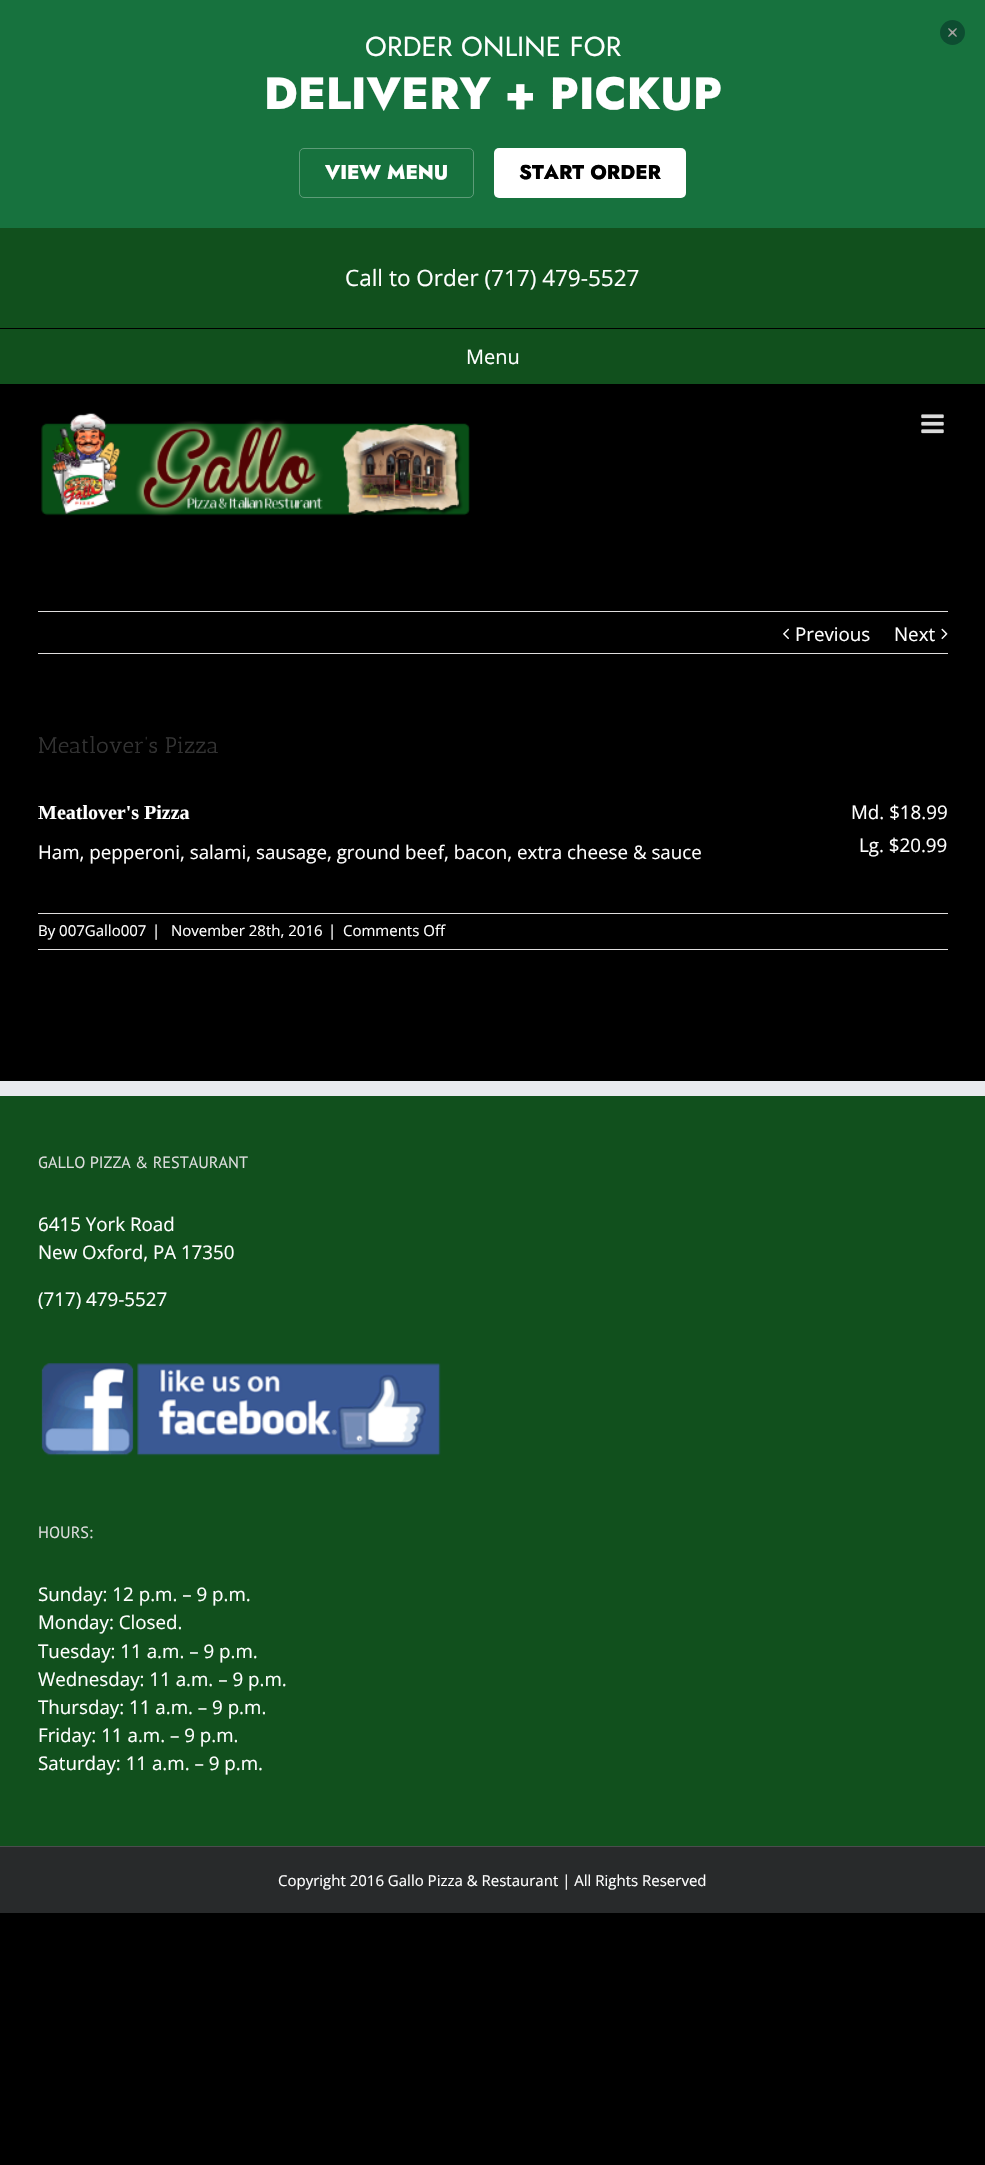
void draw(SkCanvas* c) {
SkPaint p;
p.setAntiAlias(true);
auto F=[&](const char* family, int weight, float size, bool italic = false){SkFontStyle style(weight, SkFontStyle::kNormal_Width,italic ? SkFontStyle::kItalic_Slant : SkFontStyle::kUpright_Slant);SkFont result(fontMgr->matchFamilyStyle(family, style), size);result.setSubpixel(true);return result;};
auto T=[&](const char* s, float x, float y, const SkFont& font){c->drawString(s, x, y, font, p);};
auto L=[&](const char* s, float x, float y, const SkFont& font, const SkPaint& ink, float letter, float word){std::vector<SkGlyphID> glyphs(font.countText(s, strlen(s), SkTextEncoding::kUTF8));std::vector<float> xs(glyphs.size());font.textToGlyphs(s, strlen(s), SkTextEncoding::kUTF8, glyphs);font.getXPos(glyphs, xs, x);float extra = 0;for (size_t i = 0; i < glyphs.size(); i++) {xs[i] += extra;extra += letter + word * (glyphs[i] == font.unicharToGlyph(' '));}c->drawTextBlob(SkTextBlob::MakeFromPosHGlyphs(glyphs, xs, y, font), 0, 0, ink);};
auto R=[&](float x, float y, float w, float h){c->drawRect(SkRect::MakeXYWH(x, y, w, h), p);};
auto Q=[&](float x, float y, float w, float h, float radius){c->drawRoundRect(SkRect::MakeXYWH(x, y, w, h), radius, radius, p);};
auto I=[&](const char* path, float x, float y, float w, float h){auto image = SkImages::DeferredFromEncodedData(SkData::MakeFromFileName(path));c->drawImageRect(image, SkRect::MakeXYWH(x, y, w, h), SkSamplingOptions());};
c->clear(0xff000000);
p.setColor(0xff17723e);
R(0,0,985,228);
p.setColor(0xff0d4d31);
c->drawCircle(952.5,32.5,12.5,p);
I("1.png",948,28,9,9);
auto f1 = F("Jost",400,27.5);
p.setColor(0xffffffff);
L("ORDER ONLINE FOR",365,56,f1,p,.25,0);
auto f2 = F("Jost",800,45);
L("DELIVERY + PICKUP",264,109,f2,p,.25,0);
p.setStroke(true);
p.setStrokeWidth(1);
p.setColor(0xff5d9c78);
c->drawRoundRect(SkRect::MakeXYWH(299.5,148.5,174,49),4.5,4.5,p);
auto f3 = F("Jost",800,20);
p.setStroke(false);
p.setColor(0xffffffff);
T("VIEW MENU",325,179,f3);
Q(494,148,192,50,5);
p.setColor(0xff000000);
T("START ORDER",519,179,f3);
p.setColor(0xff11501d);
R(0,228,985,156);
p.setColor(0xff000000);
R(0,328,985,1);
auto f4 = F("Open Sans",400,22.5);
p.setColor(0xffffffff);
T("Call to Order (717) 479-5527",345,286,f4);
auto f5 = F("Open Sans",400,20);
T("Menu",466,364,f5);
I("2.png",41,412,429,104);
I("3.png",921,414,23,20);
p.setColor(0xffe0dede);
R(38,611,910,1);
R(38,653,910,1);
I("4.png",783,628,6,12);
auto f6 = F("Open Sans",400,18.75);
p.setColor(0xffffffff);
T("Previous",795,641,f6);
T("Next",894,641,f6);
I("5.png",941,628,7,12);
auto f7 = F("Antic Slab",400,22.5);
p.setColor(0xff333333);
T("Meatlover’s Pizza",38,753,f7);
auto f8 = F("Liberation Serif",700,20);
p.setColor(0xffffffff);
T("Meatlover's Pizza",38,819,f8);
T("Md. $18.99",851,819,f6);
T("Lg. $20.99",859,852,f6);
T("Ham, pepperoni, salami, sausage, ground beef, bacon, extra cheese & sauce",38,859,f6);
p.setColor(0xffe0dede);
R(38,913,910,1);
R(38,949,910,1);
auto f9 = F("Open Sans",400,15);
p.setColor(0xffffffff);
T("By 007Gallo007",38,936,f9);
T("|",152,936,f9);
T("November 28th, 2016",171,936,f9);
T("|",328,936,f9);
T("Comments Off",343,936,f9);
p.setColor(0xff11501d);
R(0,1096,985,750);
p.setColor(0xffe9eaee);
R(0,1081,985,15);
auto f10 = F("PT Sans",400,16.25);
p.setColor(0xffdddddd);
T("GALLO PIZZA & RESTAURANT",38,1168,f10);
p.setColor(0xffffffff);
T("6415 York Road",38,1231,f6);
T("New Oxford, PA 17350",38,1259,f6);
T("(717) 479-5527",38,1306,f6);
I("6.png",41,1363,400,93);
p.setColor(0xffdddddd);
T("HOURS:",38,1538,f10);
p.setColor(0xffffffff);
T("Sunday: 12 p.m. – 9 p.m.",38,1601,f6);
T("Monday: Closed.",38,1629,f6);
T("Tuesday: 11 a.m. – 9 p.m.",38,1658,f6);
T("Wednesday: 11 a.m. – 9 p.m.",38,1686,f6);
T("Thursday: 11 a.m. – 9 p.m.",38,1714,f6);
T("Friday: 11 a.m. – 9 p.m.",38,1742,f6);
T("Saturday: 11 a.m. – 9 p.m.",38,1770,f6);
p.setColor(0xff282a2b);
R(0,1847,985,66);
p.setColor(0xff4b4c4d);
R(0,1846,985,1);
p.setColor(0xffffffff);
T("Copyright 2016 Gallo Pizza & Restaurant | All Rights Reserved",278,1886,f9);
}
